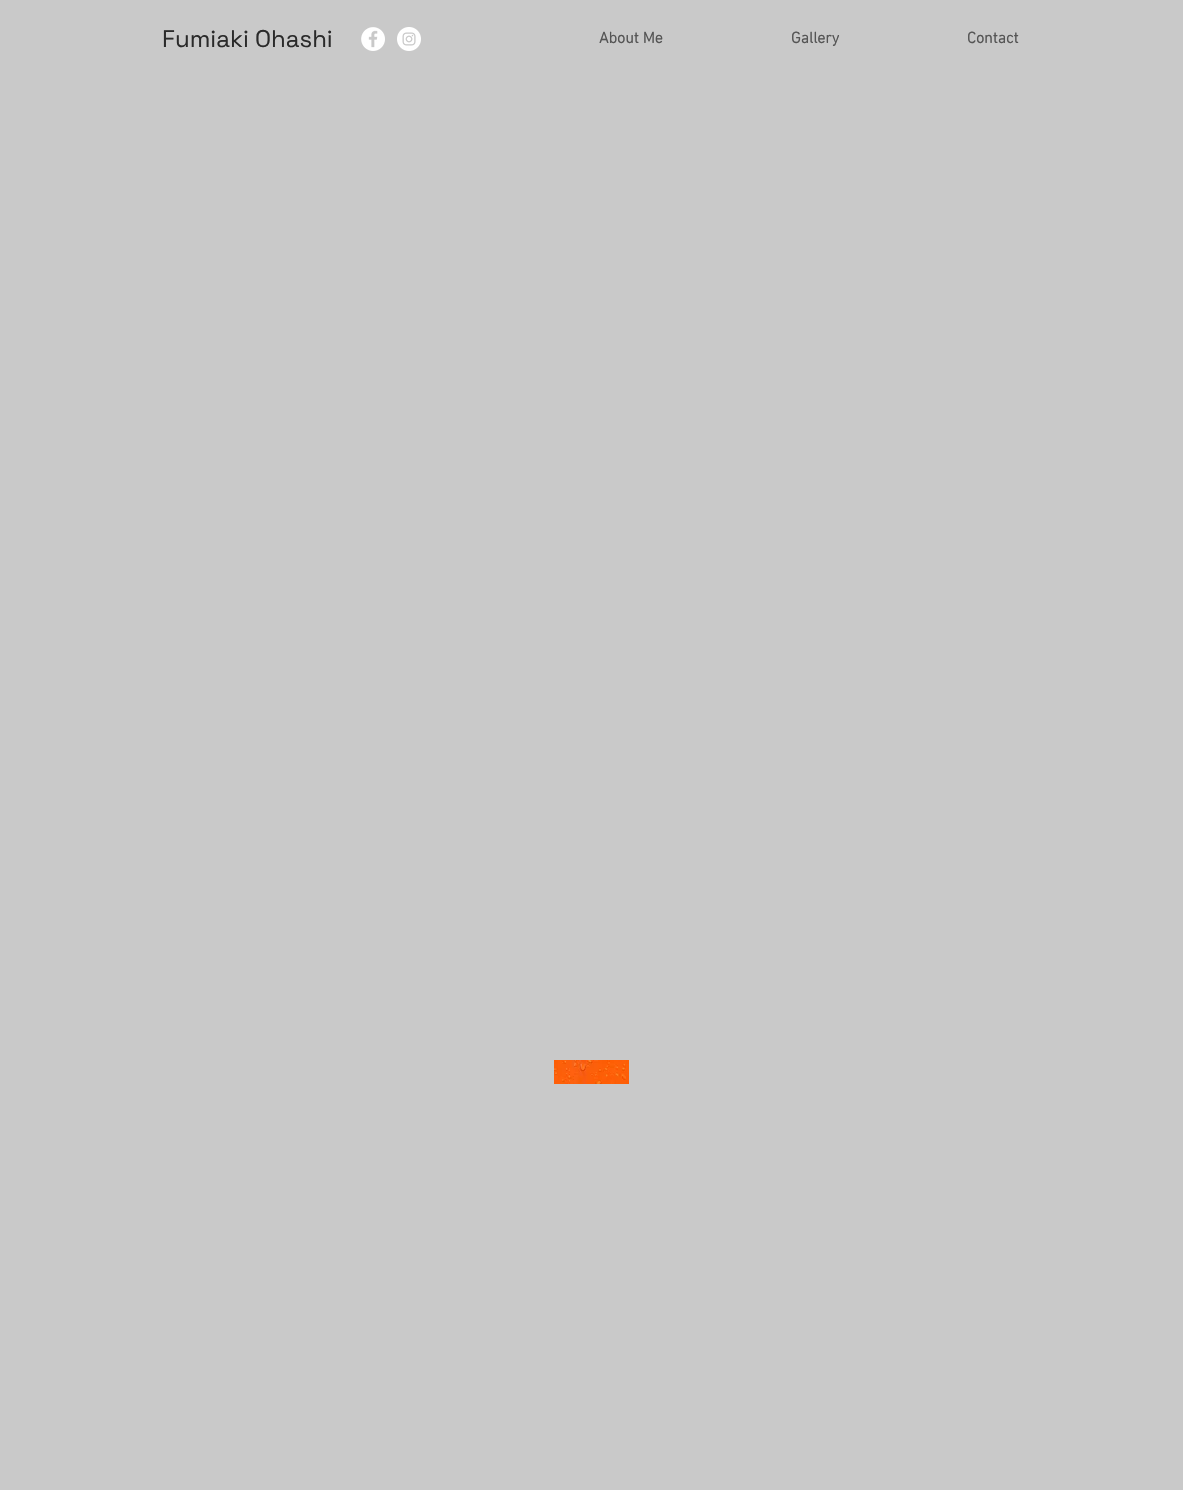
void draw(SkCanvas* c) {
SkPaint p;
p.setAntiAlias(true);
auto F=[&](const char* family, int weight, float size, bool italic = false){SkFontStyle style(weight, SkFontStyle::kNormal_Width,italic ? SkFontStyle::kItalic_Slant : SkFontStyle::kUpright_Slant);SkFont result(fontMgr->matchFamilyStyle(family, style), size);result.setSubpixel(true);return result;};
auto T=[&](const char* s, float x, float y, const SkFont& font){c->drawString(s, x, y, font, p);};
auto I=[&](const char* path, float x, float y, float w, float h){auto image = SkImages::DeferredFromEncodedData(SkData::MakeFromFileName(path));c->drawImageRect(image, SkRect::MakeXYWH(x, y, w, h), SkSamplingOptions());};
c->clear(0xffc9c9c9);
auto f1 = F("Space Grotesk",400,24);
p.setColor(0xff2a2a2a);
T("Fumiaki Ohashi",162,47,f1);
I("1.png",361,27,24,24);
I("2.png",397,27,24,24);
auto f2 = F("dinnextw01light",700,16);
p.setColor(0xff555555);
T("About Me",599,43,f2);
T("Gallery",791,43,f2);
T("Contact",967,43,f2);
I("3.png",554,1060,75,24);
}
